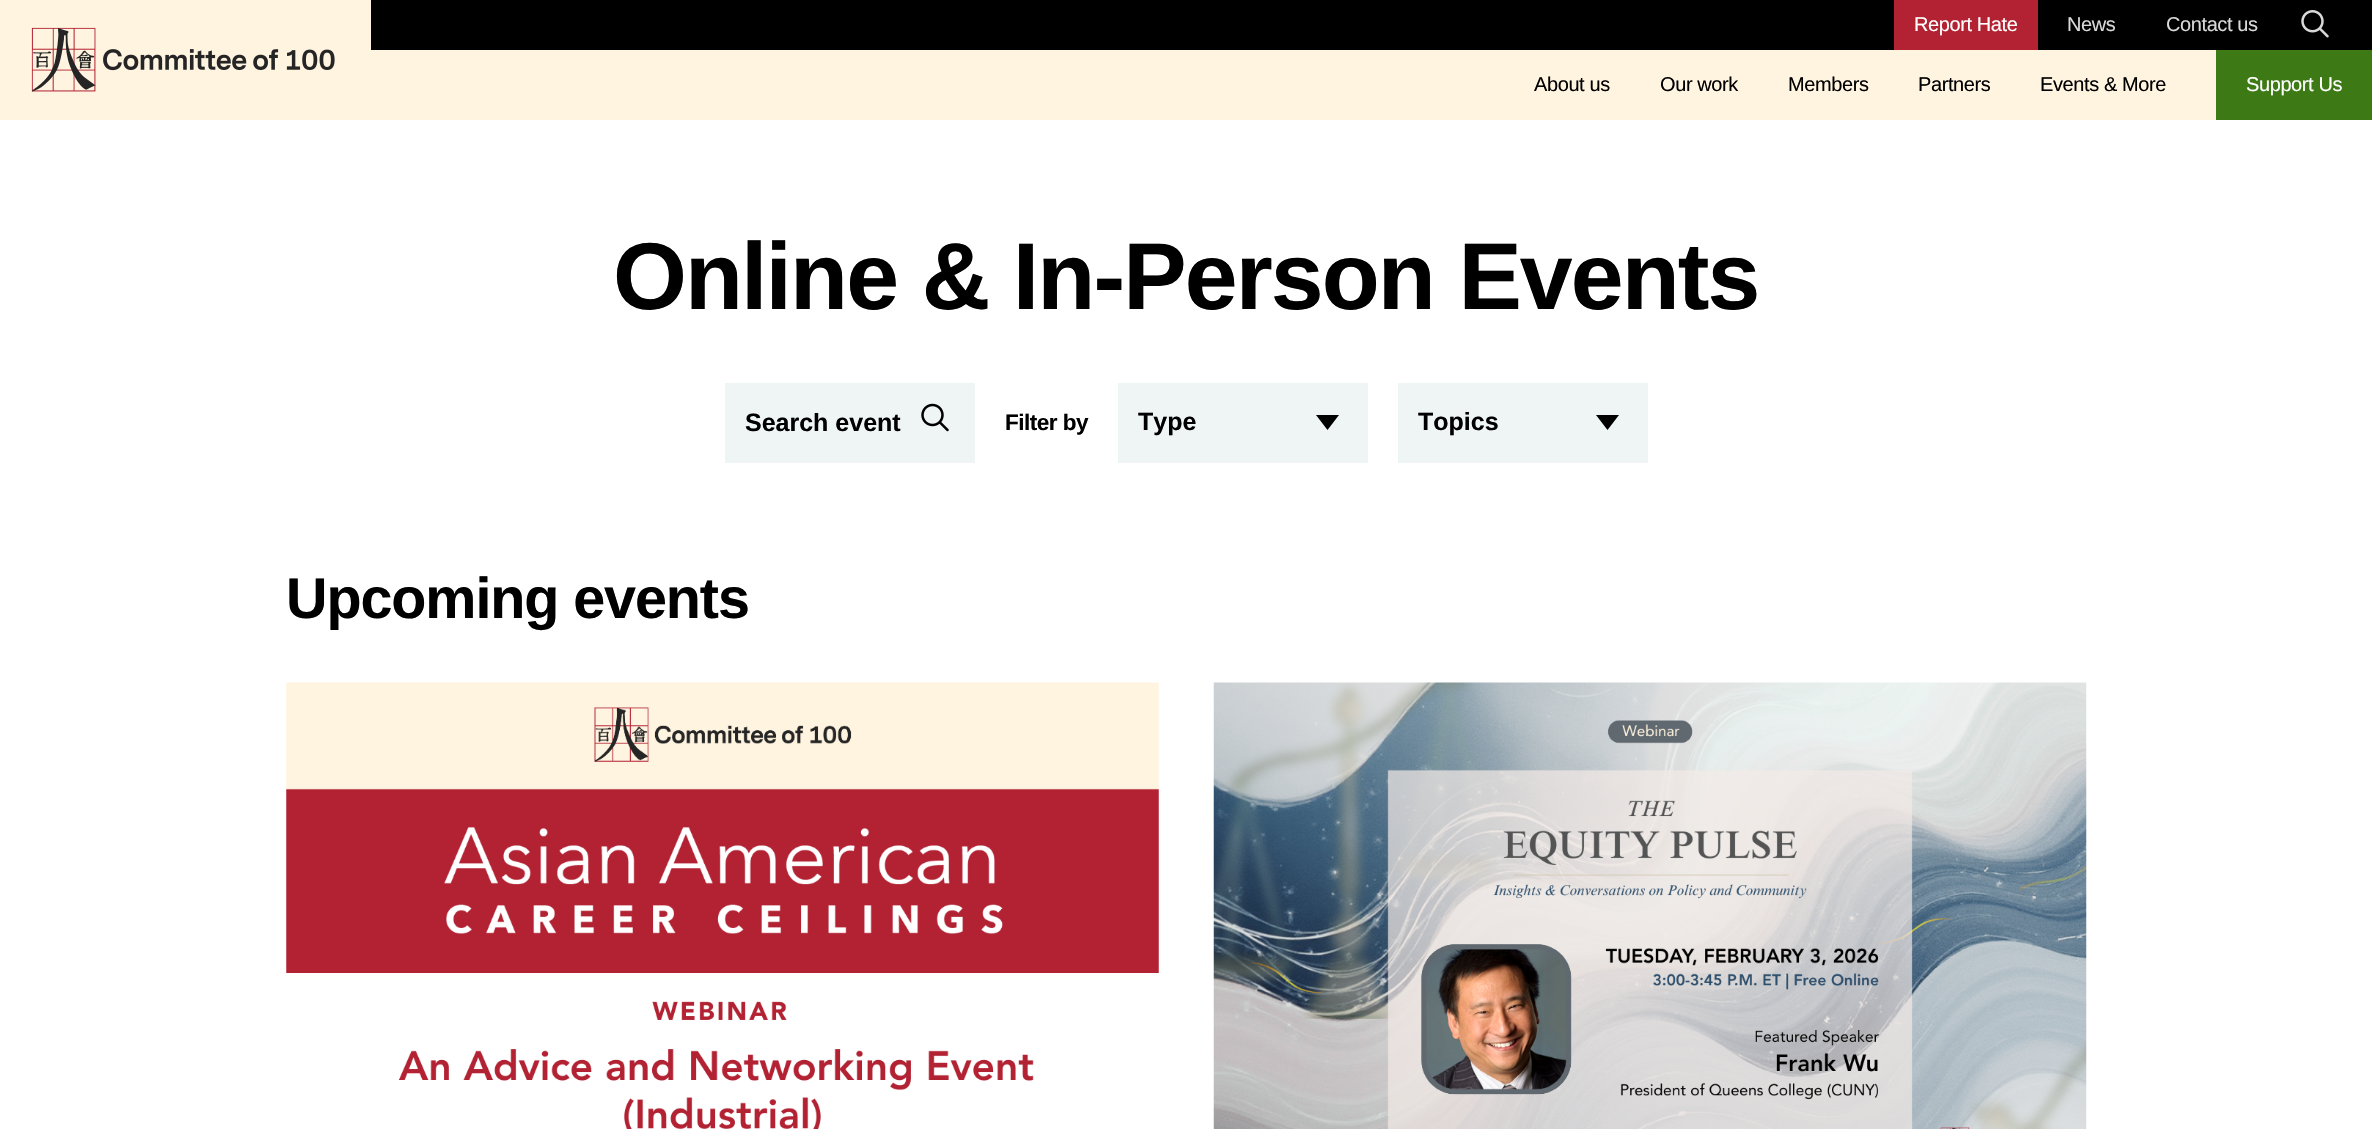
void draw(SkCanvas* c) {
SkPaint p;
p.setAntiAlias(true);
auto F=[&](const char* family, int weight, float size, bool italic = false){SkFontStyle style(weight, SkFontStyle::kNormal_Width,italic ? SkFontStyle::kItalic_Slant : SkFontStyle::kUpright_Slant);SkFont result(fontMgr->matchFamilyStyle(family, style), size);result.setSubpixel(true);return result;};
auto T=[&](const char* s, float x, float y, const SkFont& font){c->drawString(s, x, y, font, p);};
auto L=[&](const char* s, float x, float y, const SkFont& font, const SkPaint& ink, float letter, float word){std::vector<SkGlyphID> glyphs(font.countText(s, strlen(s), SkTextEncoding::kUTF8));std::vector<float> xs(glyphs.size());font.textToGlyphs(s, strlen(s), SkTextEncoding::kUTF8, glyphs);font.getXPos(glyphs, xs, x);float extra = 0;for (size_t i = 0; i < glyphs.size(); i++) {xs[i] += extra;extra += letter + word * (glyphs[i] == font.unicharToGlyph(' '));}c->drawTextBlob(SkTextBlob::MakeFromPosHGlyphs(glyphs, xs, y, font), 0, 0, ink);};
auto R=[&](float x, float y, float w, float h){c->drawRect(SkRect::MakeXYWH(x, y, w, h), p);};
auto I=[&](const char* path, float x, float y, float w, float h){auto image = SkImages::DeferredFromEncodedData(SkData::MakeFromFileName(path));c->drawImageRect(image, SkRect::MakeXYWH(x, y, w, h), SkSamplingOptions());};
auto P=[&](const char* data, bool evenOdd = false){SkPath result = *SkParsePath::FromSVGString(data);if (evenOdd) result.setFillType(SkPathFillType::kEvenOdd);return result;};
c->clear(0xffffffff);
p.setColor(0xfffff4e0);
R(0,0,2216,120);
I("1.png",31,27,304,65);
p.setColor(0xff000000);
R(371,0,2001,50);
p.setColor(0xffb22233);
R(1894,0,144,50);
auto f1 = F("Liberation Sans",400,20);
p.setColor(0xffffffff);
L("Report Hate",1914,31,f1,p,-.4,0);
p.setColor(0xffd9d9d9);
L("News",2067,31,f1,p,-.4,0);
L("Contact us",2166,31,f1,p,-.4,0);
I("2.png",2301,10,28,28);
p.setColor(0xff000000);
L("About us",1534,91,f1,p,-.4,0);
L("Our work",1660,91,f1,p,-.4,0);
L("Members",1788,91,f1,p,-.4,0);
L("Partners",1918,91,f1,p,-.4,0);
L("Events & More",2040,91,f1,p,-.4,0);
p.setColor(0xff3d7a16);
R(2216,50,156,70);
p.setColor(0xffffffff);
L("Support Us",2246,91,f1,p,-.4,0);
auto f2 = F("Liberation Sans",700,95);
p.setColor(0xff000000);
L("Online & In-Person Events",613,309,f2,p,-1.9,0);
p.setColor(0xffeff4f5);
R(725,383,250,80);
auto f3 = F("Liberation Sans",700,25);
p.setColor(0xff000000);
T("Search event",745,431,f3);
I("3.png",921,403,28,29);
auto f4 = F("Liberation Sans",700,22.5);
L("Filter by",1005,430,f4,p,-.5,0);
p.setColor(0xffeff4f5);
R(1118,383,250,80);
p.setColor(0xff000000);
T("Type",1138,430,f3);
c->drawPath(P("M1327.5 430l11.5-15h-23z"),p);
p.setColor(0xffeff4f5);
R(1398,383,250,80);
p.setColor(0xff000000);
T("Topics",1418,430,f3);
c->drawPath(P("M1607.5 430l11.5-15h-23z"),p);
auto f5 = F("Liberation Sans",700,57.5);
L("Upcoming events",286,618,f5,p,-1.1,0);
I("4.png",286,682,873,447);
I("5.png",1213,682,874,447);
}
